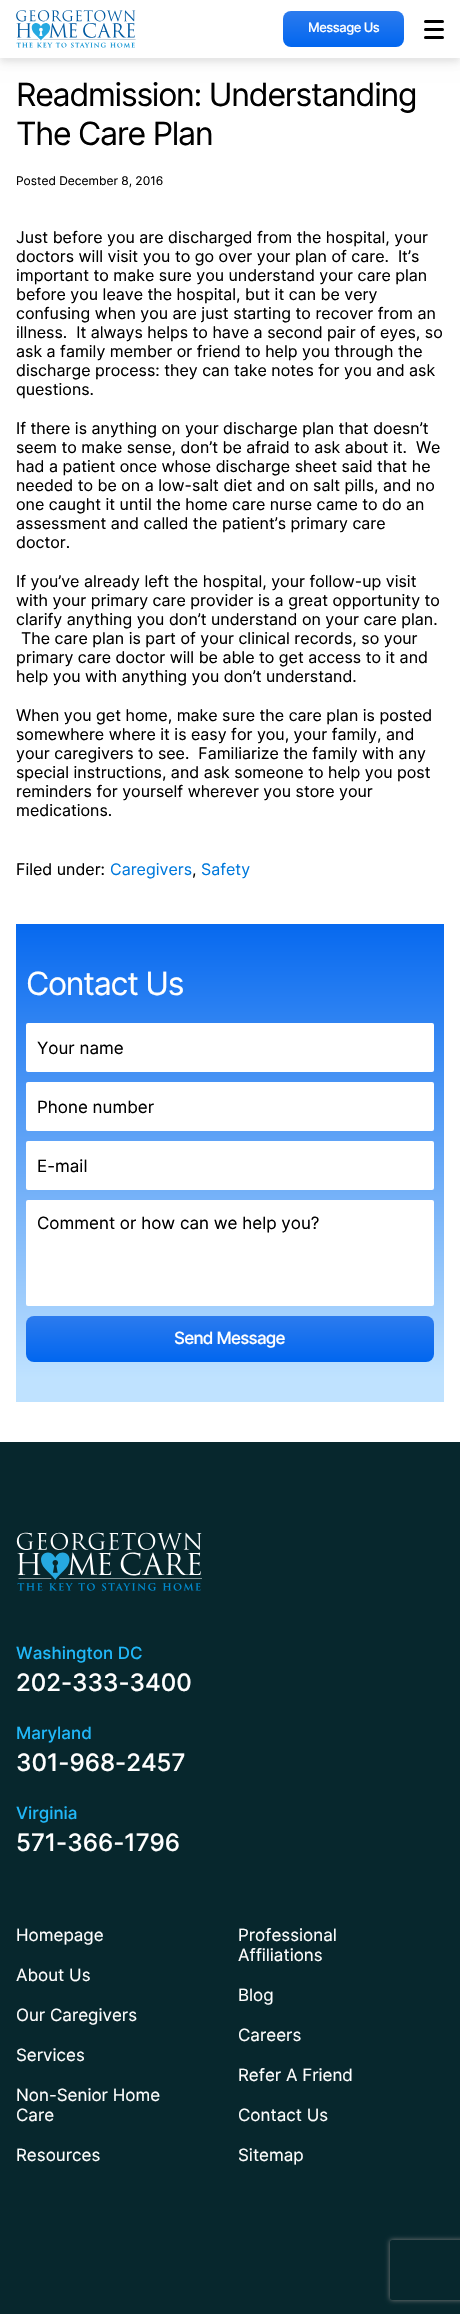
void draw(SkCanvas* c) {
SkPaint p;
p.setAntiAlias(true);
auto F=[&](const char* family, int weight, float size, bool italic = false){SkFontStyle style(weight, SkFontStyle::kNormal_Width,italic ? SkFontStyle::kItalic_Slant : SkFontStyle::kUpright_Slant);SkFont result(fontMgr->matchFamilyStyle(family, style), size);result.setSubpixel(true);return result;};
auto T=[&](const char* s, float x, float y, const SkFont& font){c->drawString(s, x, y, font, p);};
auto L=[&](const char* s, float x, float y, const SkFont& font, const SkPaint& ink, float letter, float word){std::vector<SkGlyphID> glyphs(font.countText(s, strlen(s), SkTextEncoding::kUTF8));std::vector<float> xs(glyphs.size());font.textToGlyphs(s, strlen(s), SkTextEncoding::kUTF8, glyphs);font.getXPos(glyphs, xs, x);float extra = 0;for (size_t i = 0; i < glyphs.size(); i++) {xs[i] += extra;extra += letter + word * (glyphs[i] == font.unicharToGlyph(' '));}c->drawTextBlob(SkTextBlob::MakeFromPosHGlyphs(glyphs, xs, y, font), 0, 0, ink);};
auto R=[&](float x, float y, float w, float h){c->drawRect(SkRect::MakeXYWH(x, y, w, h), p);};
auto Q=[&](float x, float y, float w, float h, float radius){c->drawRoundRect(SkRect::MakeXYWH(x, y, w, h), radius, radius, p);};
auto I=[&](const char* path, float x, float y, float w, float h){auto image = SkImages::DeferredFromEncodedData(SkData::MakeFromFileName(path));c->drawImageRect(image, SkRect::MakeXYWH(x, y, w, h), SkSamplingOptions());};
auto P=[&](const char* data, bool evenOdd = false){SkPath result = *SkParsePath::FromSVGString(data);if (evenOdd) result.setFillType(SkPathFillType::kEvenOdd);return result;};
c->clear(0xffffffff);
p.setColor(0x0d000000);
p.setMaskFilter(SkMaskFilter::MakeBlur(kNormal_SkBlurStyle, 7));
c->drawRect(SkRect::MakeXYWH(0,4,460,58),p);
p.setMaskFilter(nullptr);
p.setColor(0x12000000);
p.setMaskFilter(SkMaskFilter::MakeBlur(kNormal_SkBlurStyle, 3));
c->drawRect(SkRect::MakeXYWH(0,4,460,58),p);
p.setMaskFilter(nullptr);
p.setColor(0xffffffff);
R(0,0,460,58);
I("1.png",16,10,120,38);
{
const SkColor colors[] = {0xff2c7bee,0xff0166ef};
const float stops[] = {0,1};
const SkPoint ends[] = {{344,11}, {344,47}};
p.setShader(SkGradientShader::MakeLinear(ends, colors, stops, 2, SkTileMode::kClamp));
p.setAlpha(255);
}
Q(283,11,121,36,8);
auto f1 = F("Inter",500,13);
p.setShader(nullptr);
p.setColor(0xffffffff);
L("Message Us",308,32,f1,p,-.5,0);
p.setColor(0xff000000);
Q(424,20,20,3,1.5);
Q(424,28,20,3,1.5);
Q(424,36,20,3,1.5);
auto f2 = F("Inter",400,32);
L("Readmission: Understanding",16,106,f2,p,-1.25,0);
L("The Care Plan",16,145,f2,p,-1.25,0);
auto f3 = F("Inter",400,12);
T("Posted December 8, 2016",16,185,f3);
auto f4 = F("Inter",400,16);
T("Just before you are discharged from the hospital, your",16,243,f4);
T("doctors will visit you to go over your plan of care.  It’s",16,262,f4);
T("important to make sure you understand your care plan",16,281,f4);
T("before you leave the hospital, but it can be very",16,300,f4);
T("confusing when you are just starting to recover from an",16,319,f4);
T("illness.  It always helps to have a second pair of eyes, so",16,338,f4);
T("ask a family member or friend to help you through the",16,357,f4);
T("discharge process: they can take notes for you and ask",16,376,f4);
T("questions.",16,395,f4);
T("If there is anything on your discharge plan that doesn’t",16,434,f4);
T("seem to make sense, don’t be afraid to ask about it.  We",16,453,f4);
T("had a patient once whose discharge sheet said that he",16,472,f4);
T("needed to be on a low-salt diet and on salt pills, and no",16,491,f4);
T("one caught it until the home care nurse came to do an",16,510,f4);
T("assessment and called the patient’s primary care",16,529,f4);
T("doctor.",16,548,f4);
T("If you’ve already left the hospital, your follow-up visit",16,587,f4);
T("with your primary care provider is a great opportunity to",16,606,f4);
T("clarify anything you don’t understand on your care plan.",16,625,f4);
T("The care plan is part of your clinical records, so your",21,644,f4);
T("primary care doctor will be able to get access to it and",16,663,f4);
T("help you with anything you don’t understand.",16,682,f4);
T("When you get home, make sure the care plan is posted",16,721,f4);
T("somewhere where it is easy for you, your family, and",16,740,f4);
T("your caregivers to see.  Familiarize the family with any",16,759,f4);
T("special instructions, and ask someone to help you post",16,778,f4);
T("reminders for yourself wherever you store your",16,797,f4);
T("medications.",16,816,f4);
T("Filed under:",16,875,f4);
p.setColor(0xff0079dc);
T("Caregivers",110,875,f4);
p.setColor(0xff000000);
T(",",192,875,f4);
p.setColor(0xff0079dc);
T("Safety",201,875,f4);
{
const SkColor colors[] = {0xff0769ef,0xffbfe2ff};
const float stops[] = {0,.95};
const SkPoint ends[] = {{230,924}, {230,1402}};
p.setShader(SkGradientShader::MakeLinear(ends, colors, stops, 2, SkTileMode::kClamp));
p.setAlpha(255);
}
R(16,924,428,478);
p.setShader(nullptr);
p.setColor(0xffffffff);
L("Contact Us",26,995,f2,p,-1.25,0);
Q(26,1023,408,49,2);
auto f5 = F("Inter",400,17);
p.setColor(0xff000000);
T("Your name",37,1054,f5);
p.setColor(0xffffffff);
Q(26,1082,408,49,2);
p.setColor(0xff000000);
T("Phone number",37,1113,f5);
p.setColor(0xffffffff);
Q(26,1141,408,49,2);
p.setColor(0xff000000);
T("E-mail",37,1172,f5);
p.setColor(0xffffffff);
Q(26,1200,408,106,2);
p.setColor(0xff000000);
T("Comment or how can we help you?",37,1229,f5);
{
const SkColor colors[] = {0xff2c7bee,0xff0166ef};
const float stops[] = {0,1};
const SkPoint ends[] = {{230,1316}, {230,1362}};
p.setShader(SkGradientShader::MakeLinear(ends, colors, stops, 2, SkTileMode::kClamp));
p.setAlpha(255);
}
Q(26,1316,408,46,8);
auto f6 = F("Inter",500,17);
p.setShader(nullptr);
p.setColor(0xffffffff);
L("Send Message",174,1344,f6,p,-.75,0);
p.setColor(0xff07272d);
R(0,1442,460,872);
I("2.png",16,1532,186,59);
p.setColor(0xff20b7f8);
T("Washington DC",16,1659,f6);
auto f7 = F("Inter",500,24);
p.setColor(0xffffffff);
T("202-333-3400",16,1691,f7);
p.setColor(0xff20b7f8);
T("Maryland",16,1739,f6);
p.setColor(0xffffffff);
T("301-968-2457",16,1771,f7);
p.setColor(0xff20b7f8);
T("Virginia",16,1819,f6);
p.setColor(0xffffffff);
T("571-366-1796",16,1851,f7);
T("Homepage",16,1941,f5);
T("Professional",238,1941,f5);
T("Affiliations",238,1961,f5);
T("About Us",16,1981,f5);
T("Blog",238,2001,f5);
T("Our Caregivers",16,2021,f5);
T("Careers",238,2041,f5);
T("Services",16,2061,f5);
T("Refer A Friend",238,2081,f5);
T("Non-Senior Home",16,2101,f5);
T("Care",16,2121,f5);
T("Contact Us",238,2121,f5);
T("Resources",16,2161,f5);
T("Sitemap",238,2161,f5);
c->save();
c->clipPath(P("M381 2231h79v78h-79zm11 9h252c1 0 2 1 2 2v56c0 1-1 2-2 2h-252c-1 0-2-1-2-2v-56c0-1 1-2 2-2z",true),true);
p.setColor(0xff808080);
p.setMaskFilter(SkMaskFilter::MakeBlur(kNormal_SkBlurStyle, 2.5));
c->drawRoundRect(SkRect::MakeXYWH(390,2240,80,60),2,2,p);
p.setMaskFilter(nullptr);
c->restore();
}
